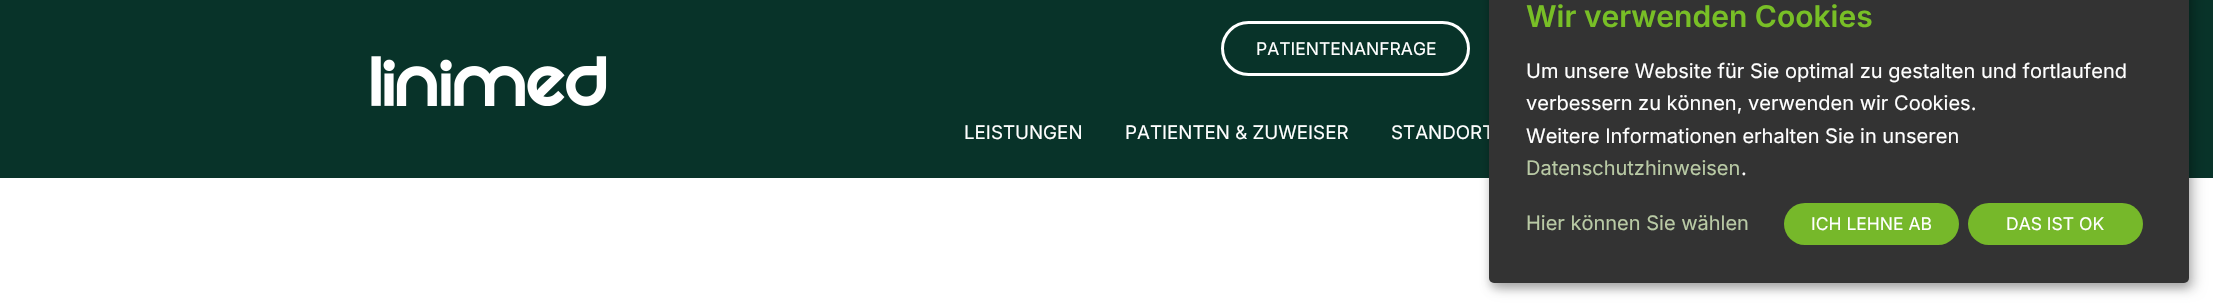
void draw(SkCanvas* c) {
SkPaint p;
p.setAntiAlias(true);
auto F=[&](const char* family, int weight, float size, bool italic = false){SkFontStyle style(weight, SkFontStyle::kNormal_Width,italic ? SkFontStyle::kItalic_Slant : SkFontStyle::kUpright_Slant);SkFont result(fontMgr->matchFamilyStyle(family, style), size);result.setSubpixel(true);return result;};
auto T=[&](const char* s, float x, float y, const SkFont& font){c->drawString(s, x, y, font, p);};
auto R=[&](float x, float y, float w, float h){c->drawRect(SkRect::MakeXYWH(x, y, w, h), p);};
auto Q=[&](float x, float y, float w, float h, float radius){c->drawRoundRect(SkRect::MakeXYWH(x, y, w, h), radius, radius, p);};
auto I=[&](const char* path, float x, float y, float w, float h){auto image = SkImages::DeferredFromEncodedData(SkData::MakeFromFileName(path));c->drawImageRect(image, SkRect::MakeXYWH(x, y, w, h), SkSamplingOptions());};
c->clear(0xffffffff);
p.setColor(0xff083329);
R(0,0,2213,178);
I("1.png",371,56,236,50);
p.setStroke(true);
p.setStrokeWidth(3);
p.setColor(0xffffffff);
c->drawRoundRect(SkRect::MakeXYWH(1222.5,22.5,246,52),26,26,p);
auto f1 = F("Inter",400,17.5);
p.setStroke(false);
T("PATIENTENANFRAGE",1256,55,f1);
auto f2 = F("Inter",400,18.75);
T("LEISTUNGEN",964,139,f2);
T("PATIENTEN & ZUWEISER",1125,139,f2);
T("STANDORT",1391,139,f2);
p.setColor(0x30000000);
p.setMaskFilter(SkMaskFilter::MakeBlur(kNormal_SkBlurStyle, 6));
c->drawRoundRect(SkRect::MakeXYWH(1495,-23,700,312),5,5,p);
p.setMaskFilter(nullptr);
p.setColor(0x33000000);
p.setMaskFilter(SkMaskFilter::MakeBlur(kNormal_SkBlurStyle, 4));
c->drawRoundRect(SkRect::MakeXYWH(1489,-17,700,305),5,5,p);
p.setMaskFilter(nullptr);
p.setColor(0xff333333);
Q(1489,-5,700,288,5);
auto f3 = F("Inter",600,30);
p.setColor(0xff78bf26);
T("Wir verwenden Cookies",1526,27,f3);
auto f4 = F("Inter",400,20);
p.setColor(0xffffffff);
T("Um unsere Website für Sie optimal zu gestalten und fortlaufend",1526,78,f4);
T("verbessern zu können, verwenden wir Cookies.",1526,110,f4);
T("Weitere Informationen erhalten Sie in unseren",1526,143,f4);
p.setColor(0xffb9caa5);
T("Datenschutzhinweisen",1526,175,f4);
p.setColor(0xffffffff);
T(".",1741,175,f4);
p.setColor(0xffb9caa5);
T("Hier können Sie wählen",1526,230,f4);
p.setColor(0xff76b82a);
Q(1784,203,175,42,21);
p.setColor(0xffffffff);
T("ICH LEHNE AB",1811,230,f1);
p.setColor(0xff76b82a);
Q(1968,203,175,42,21);
p.setColor(0xffffffff);
T("DAS IST OK",2006,230,f1);
}
